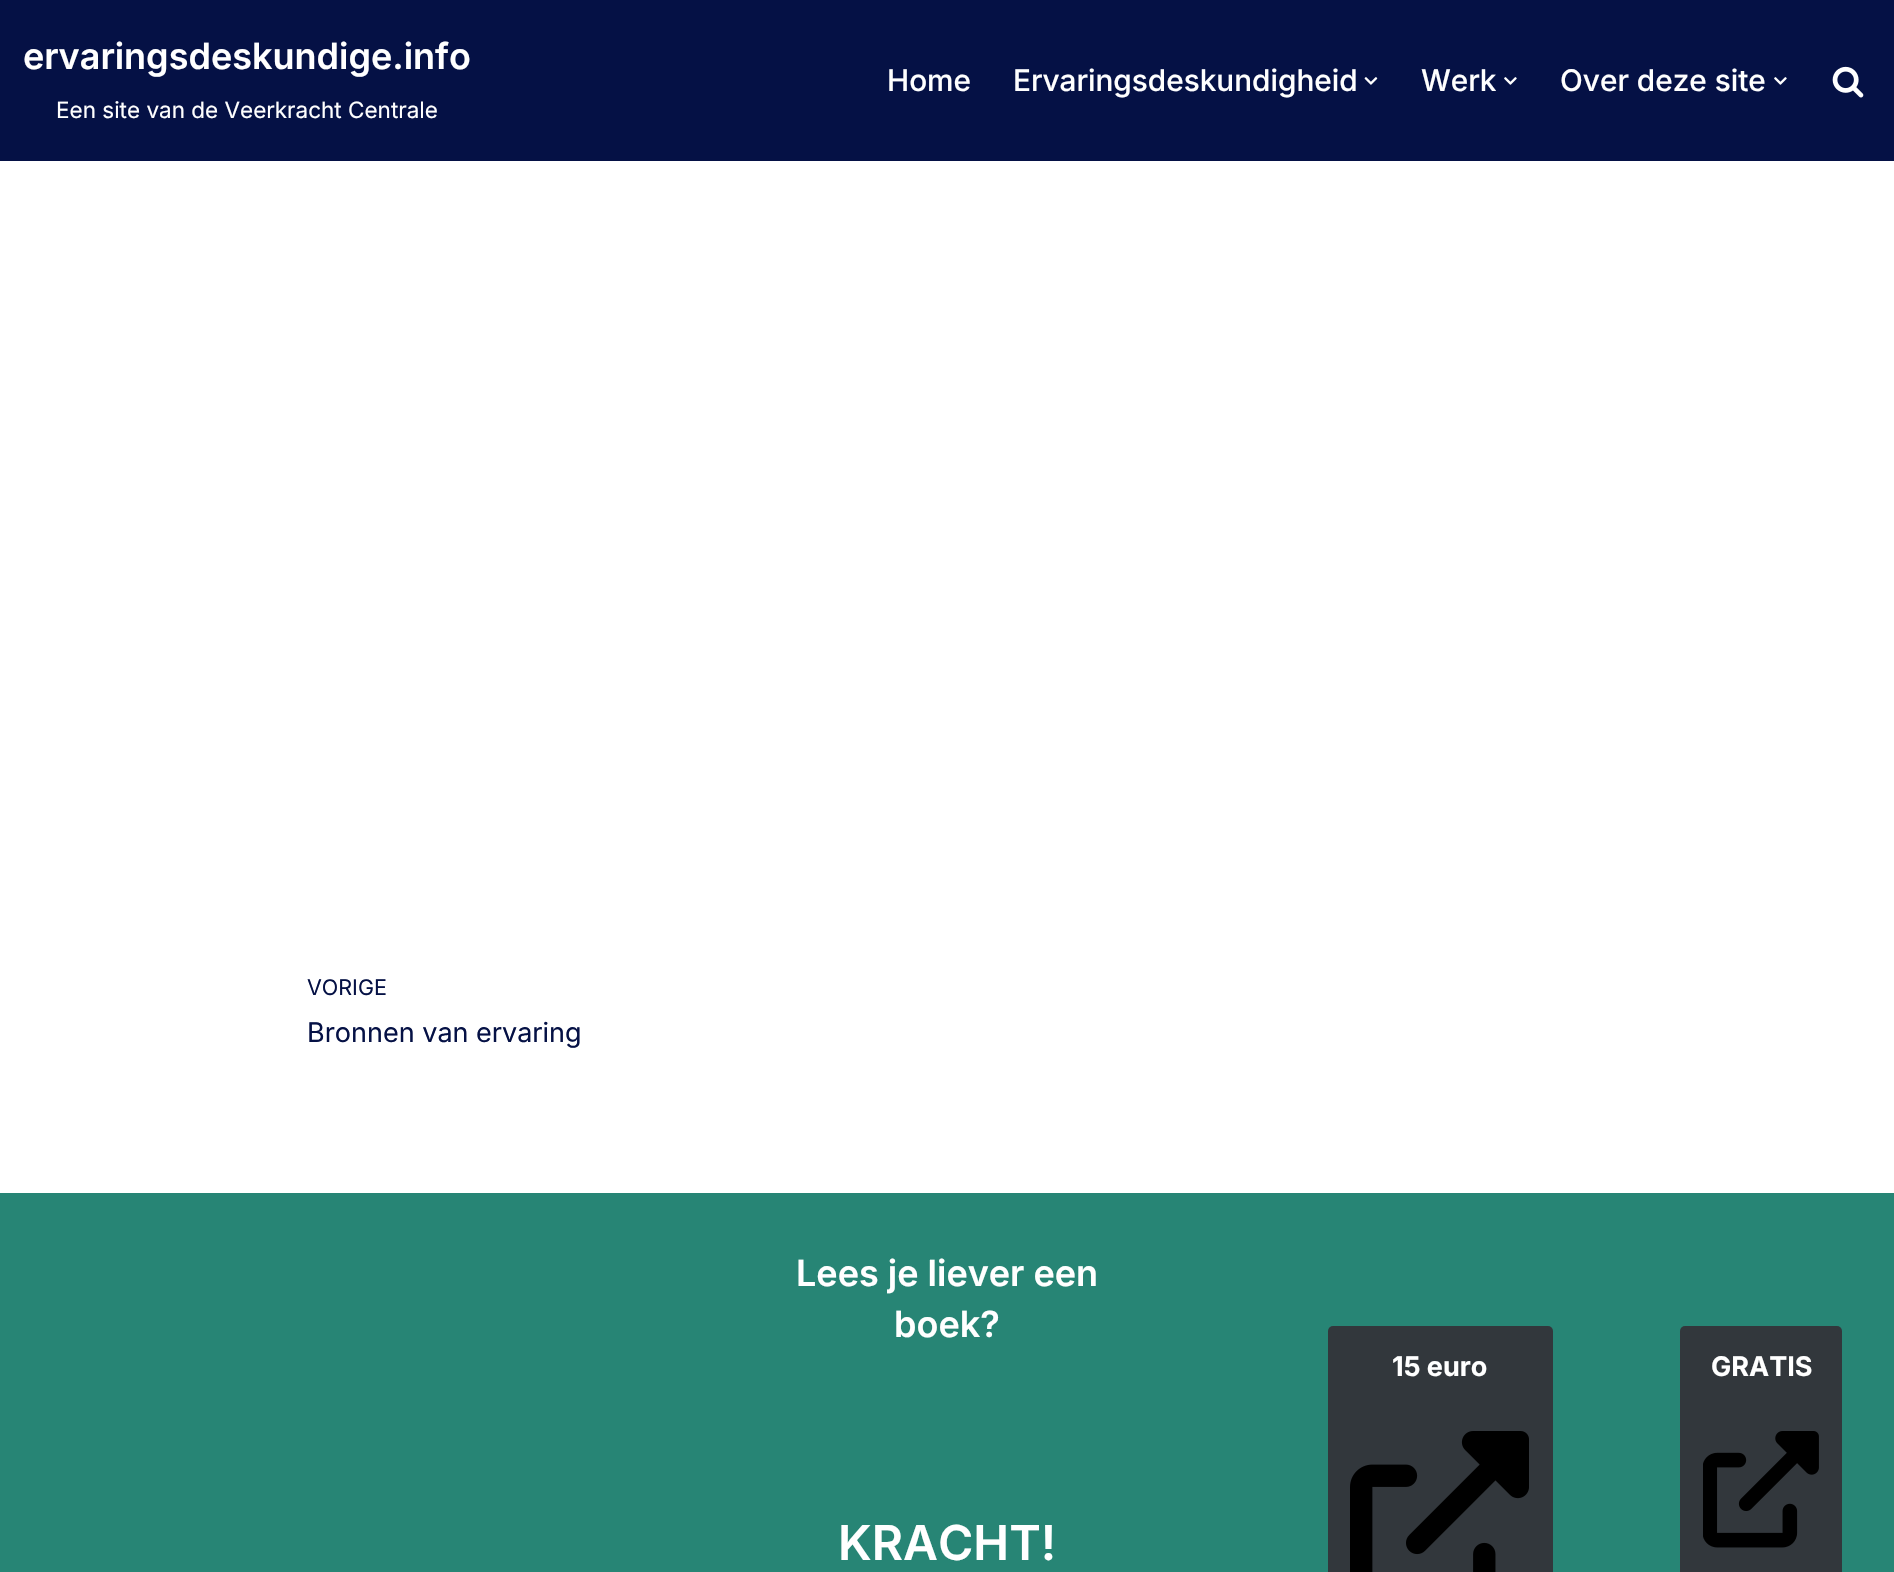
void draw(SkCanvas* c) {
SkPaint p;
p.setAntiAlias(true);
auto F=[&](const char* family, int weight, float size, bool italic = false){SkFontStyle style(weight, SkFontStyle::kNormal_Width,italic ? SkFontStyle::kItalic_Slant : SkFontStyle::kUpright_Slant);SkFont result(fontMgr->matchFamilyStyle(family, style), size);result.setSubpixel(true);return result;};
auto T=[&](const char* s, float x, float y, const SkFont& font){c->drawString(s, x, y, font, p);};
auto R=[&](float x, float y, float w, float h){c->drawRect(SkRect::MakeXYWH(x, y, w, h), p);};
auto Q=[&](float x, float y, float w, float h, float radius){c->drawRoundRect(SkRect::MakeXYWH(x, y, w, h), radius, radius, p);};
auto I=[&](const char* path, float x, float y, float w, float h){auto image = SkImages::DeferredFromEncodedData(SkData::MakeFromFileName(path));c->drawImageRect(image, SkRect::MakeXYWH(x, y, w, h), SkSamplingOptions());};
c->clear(0xffffffff);
p.setColor(0xff051145);
R(0,0,1894,161);
auto f1 = F("Inter",600,36);
p.setColor(0xffffffff);
T("ervaringsdeskundige.info",23,69,f1);
auto f2 = F("Inter",400,22.5);
T("Een site van de Veerkracht Centrale",56,118,f2);
auto f3 = F("Inter",500,29.75);
T("Home",887,91,f3);
T("Ervaringsdeskundigheid",1013,91,f3);
I("1.png",1364,77,14,8);
T("Werk",1421,91,f3);
I("2.png",1504,77,13,8);
T("Over deze site",1560,91,f3);
I("2.png",1774,77,13,8);
I("3.png",1832,66,32,32);
auto f4 = F("Inter",400,21.5);
p.setColor(0xff051145);
T("VORIGE",307,995,f4);
auto f5 = F("Inter",400,27);
T("Bronnen van ervaring",307,1042,f5);
p.setColor(0xff278575);
R(0,1193,1894,379);
p.setColor(0xffffffff);
T("Lees je liever een",796,1286,f1);
T("boek?",894,1337,f1);
auto f6 = F("Inter",600,48);
T("KRACHT!",838,1560,f6);
p.setColor(0xff32373c);
Q(1328,1326,225,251,5);
auto f7 = F("Inter",700,27);
p.setColor(0xffffffff);
T("15 euro",1392,1376,f7);
I("4.png",1350,1431,179,141);
p.setColor(0xff32373c);
Q(1680,1326,162,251,5);
p.setColor(0xffffffff);
T("GRATIS",1711,1376,f7);
I("5.png",1703,1431,116,117);
}
